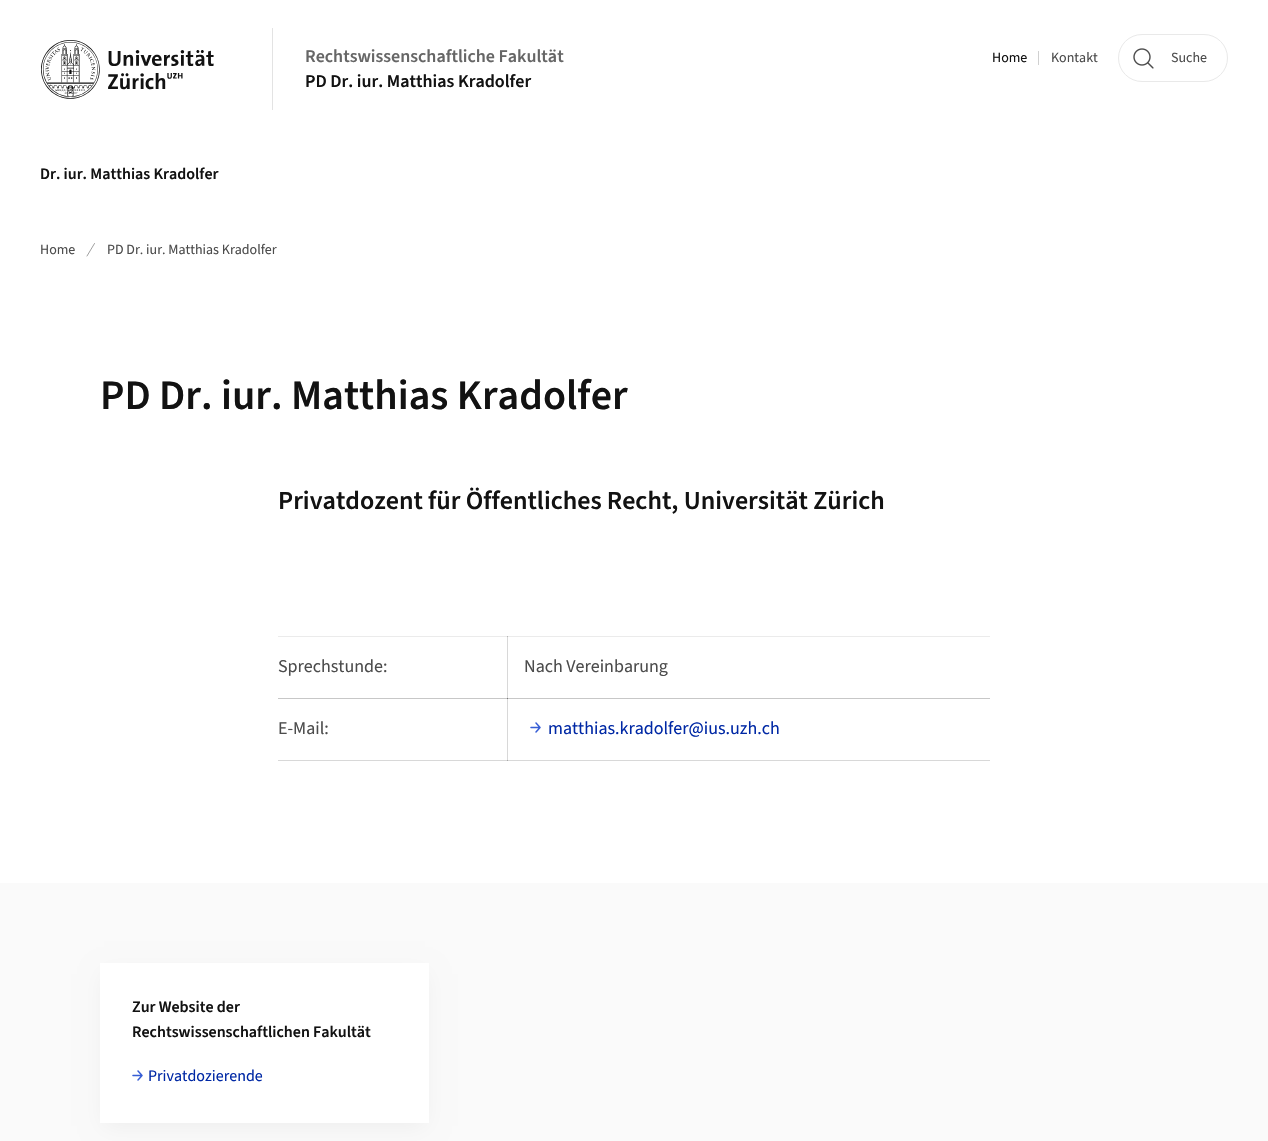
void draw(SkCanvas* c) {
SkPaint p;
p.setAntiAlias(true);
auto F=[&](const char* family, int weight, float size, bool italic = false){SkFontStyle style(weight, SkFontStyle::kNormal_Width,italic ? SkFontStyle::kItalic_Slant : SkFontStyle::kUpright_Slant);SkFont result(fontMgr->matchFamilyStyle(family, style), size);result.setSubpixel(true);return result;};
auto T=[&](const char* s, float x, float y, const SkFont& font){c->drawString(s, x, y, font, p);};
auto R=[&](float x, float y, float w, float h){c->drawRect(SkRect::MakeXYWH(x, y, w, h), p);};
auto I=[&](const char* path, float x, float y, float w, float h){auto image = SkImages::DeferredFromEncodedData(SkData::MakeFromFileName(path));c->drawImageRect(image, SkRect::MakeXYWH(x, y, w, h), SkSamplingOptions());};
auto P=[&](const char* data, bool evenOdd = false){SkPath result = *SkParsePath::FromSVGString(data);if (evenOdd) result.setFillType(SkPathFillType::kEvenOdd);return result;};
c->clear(0xffffffff);
p.setColor(0xffebebeb);
R(278,636,230,1);
p.setColor(0xffd8d8d8);
R(507,636,1,125);
I("1.png",41,40,173,59);
p.setColor(0xffe3e3e3);
R(272,28,1,82);
auto f1 = F("Source Sans 3",600,18);
p.setColor(0xff666666);
T("Rechtswissenschaftliche Fakultät",305,62,f1);
p.setColor(0xff121212);
T("PD Dr. iur. Matthias Kradolfer",305,87,f1);
auto f2 = F("Source Sans 3",400,14);
T("Home",992,62,f2);
p.setColor(0xffd0d0d0);
R(1038,51,1,14);
p.setColor(0xff4c4c4c);
T("Kontakt",1051,62,f2);
p.setStroke(true);
p.setStrokeWidth(1);
p.setColor(0xffe9e9e9);
c->drawRoundRect(SkRect::MakeXYWH(1118.5,34.5,109,47),23.5,23.5,p);
I("2.png",1133,48,21,21);
p.setStroke(false);
p.setColor(0xff4c4c4c);
T("Suche",1171,62,f2);
auto f3 = F("Source Sans 3",600,16);
p.setColor(0xff121212);
T("Dr. iur. Matthias Kradolfer",40,179,f3);
p.setColor(0xff4c4c4c);
T("Home",40,254,f2);
p.setStroke(true);
p.setStrokeWidth(.9);
p.setStrokeCap(SkPaint::kRound_Cap);
p.setColor(0xff949494);
c->drawPath(P("M87 256l7.5-12.5"),p);
p.setStroke(false);
p.setColor(0xff4c4c4c);
T("PD Dr. iur. Matthias Kradolfer",107,254,f2);
auto f4 = F("Source Sans 3",600,42);
p.setColor(0xff121212);
T("PD Dr. iur. Matthias Kradolfer",100,409,f4);
auto f5 = F("Source Sans 3",600,26);
T("Privatdozent für Öffentliches Recht, Universität Zürich",278,509,f5);
p.setColor(0xffc7c7c7);
R(278,698,712,1);
auto f6 = F("Source Sans 3",400,18);
p.setColor(0xff4c4c4c);
T("Sprechstunde:",278,672,f6);
p.setColor(0xffebebeb);
R(507,636,483,1);
p.setColor(0xffb7b7b7);
R(507,636,1,1);
p.setColor(0xff4c4c4c);
T("Nach Vereinbarung",524,672,f6);
p.setColor(0xffd8d8d8);
R(278,760,712,1);
p.setColor(0xff4c4c4c);
T("E-Mail:",278,734,f6);
p.setColor(0xff797979);
R(507,698,1,1);
p.setColor(0xffa8a8a8);
R(507,760,1,1);
I("3.png",530,722,11,11);
p.setColor(0xff0028a5);
T("matthias.kradolfer@ius.uzh.ch",548,734,f6);
p.setColor(0xfffafafa);
R(0,883,1268,258);
p.setColor(0x0d000000);
p.setMaskFilter(SkMaskFilter::MakeBlur(kNormal_SkBlurStyle, 11));
c->drawRect(SkRect::MakeXYWH(104,974,321,152),p);
p.setMaskFilter(nullptr);
p.setColor(0xffffffff);
R(100,963,329,160);
p.setColor(0xff121212);
T("Zur Website der",132,1012,f3);
T("Rechtswissenschaftlichen Fakultät",132,1037,f3);
I("3.png",132,1070,11,11);
auto f7 = F("Source Sans 3",400,16);
p.setColor(0xff0028a5);
T("Privatdozierende",148,1081,f7);
}
